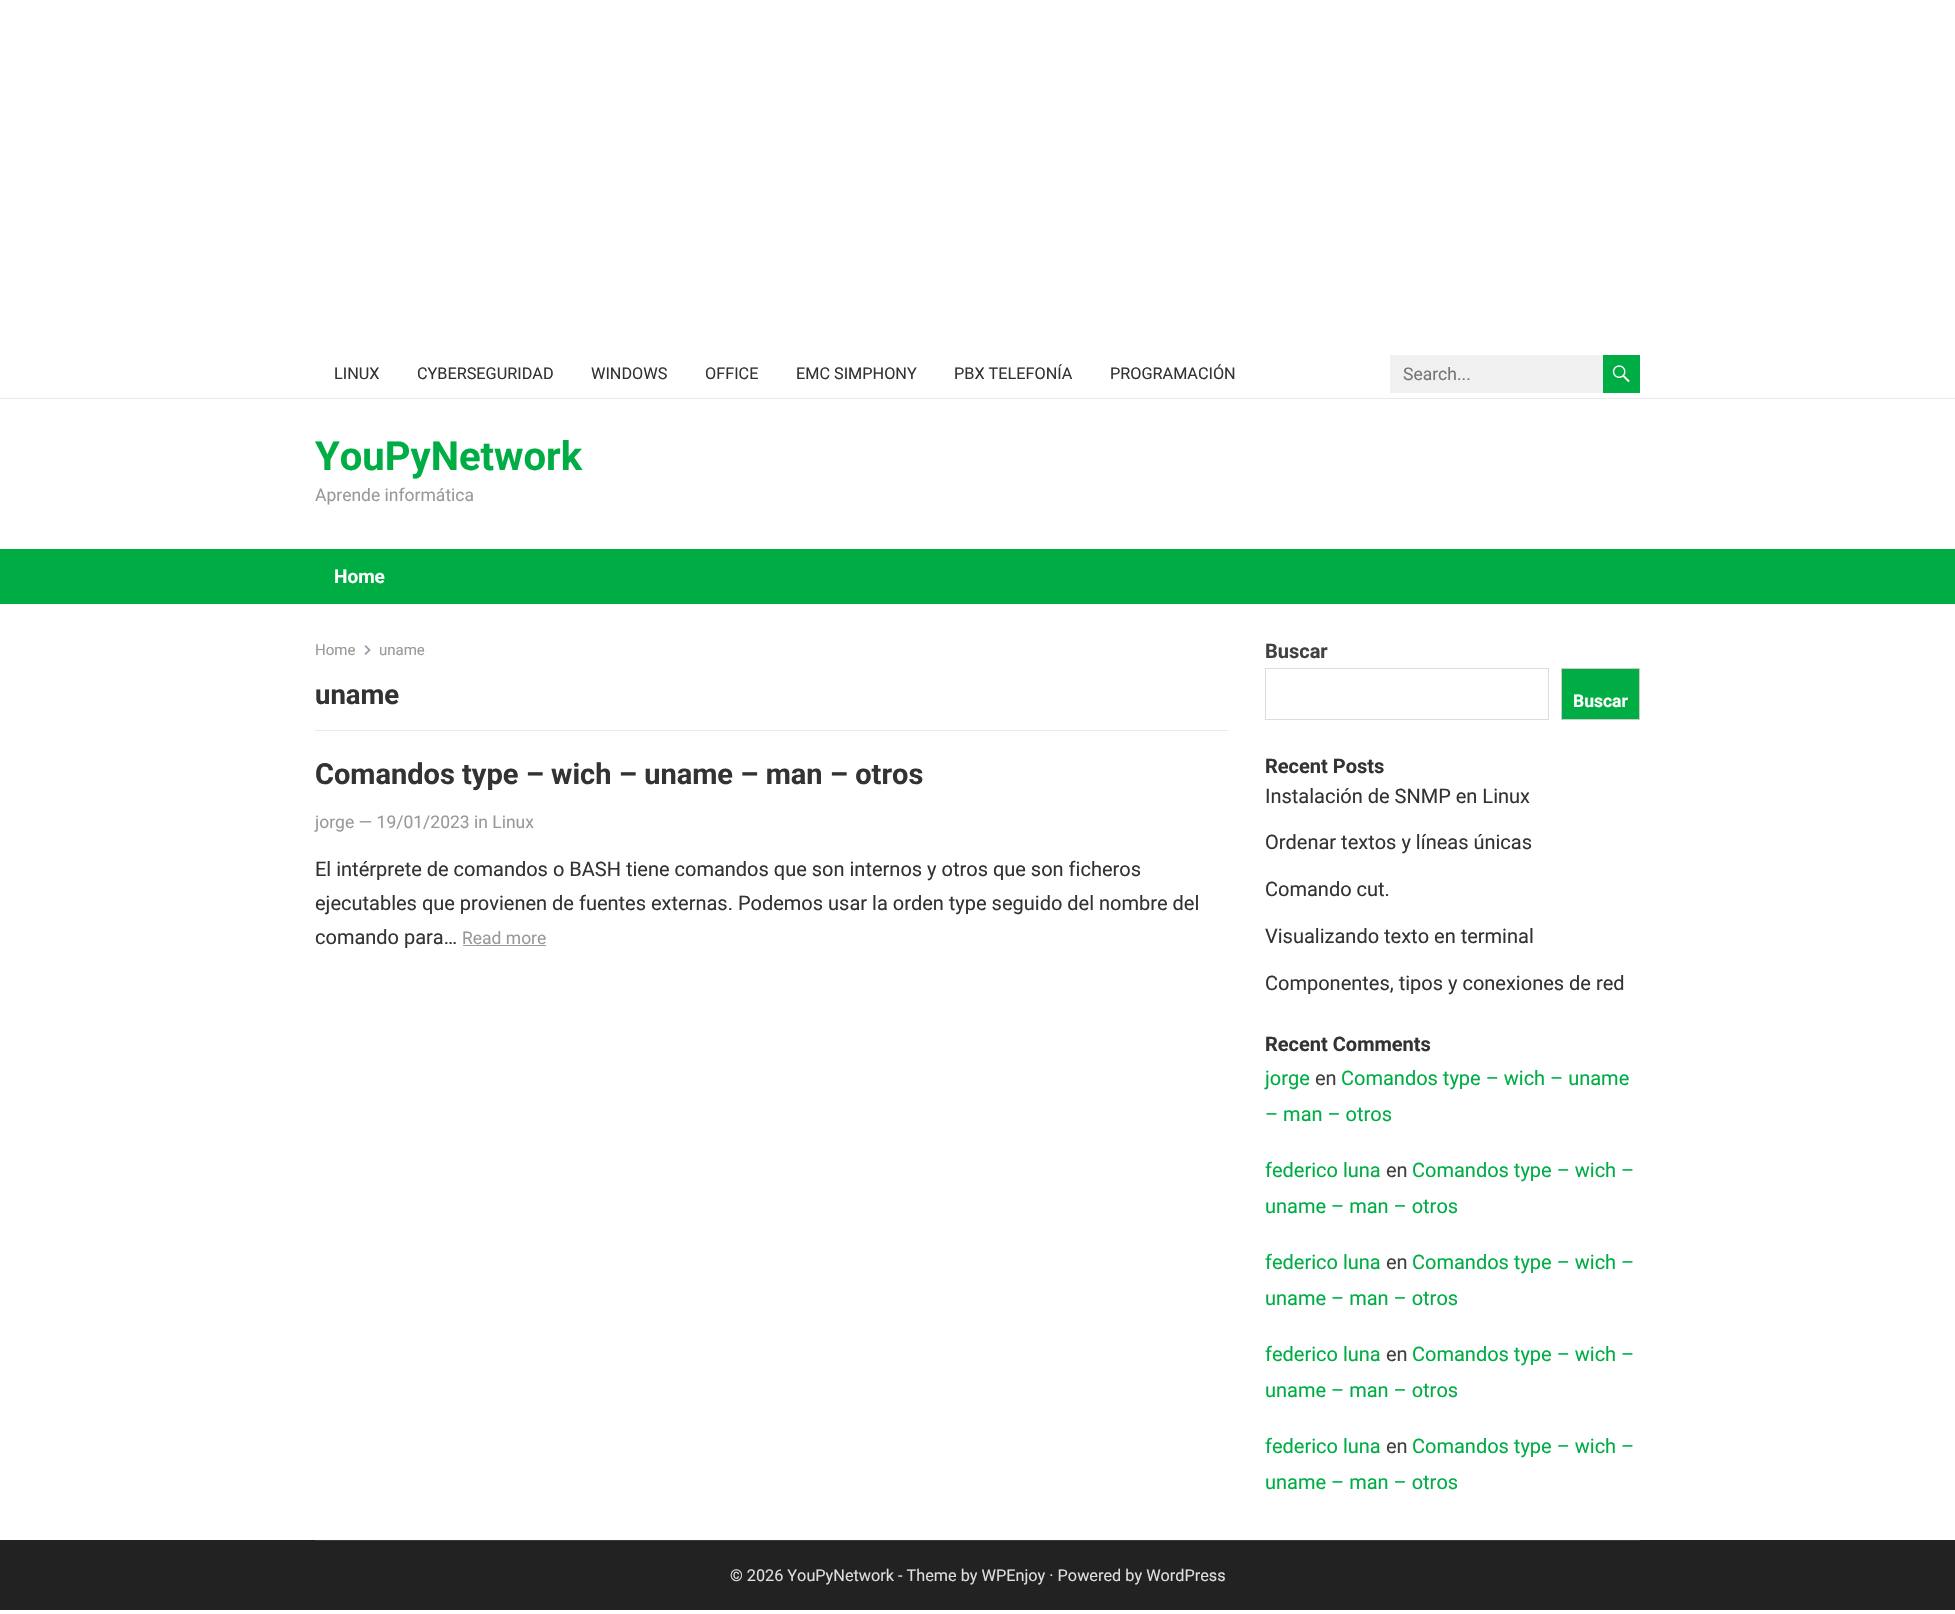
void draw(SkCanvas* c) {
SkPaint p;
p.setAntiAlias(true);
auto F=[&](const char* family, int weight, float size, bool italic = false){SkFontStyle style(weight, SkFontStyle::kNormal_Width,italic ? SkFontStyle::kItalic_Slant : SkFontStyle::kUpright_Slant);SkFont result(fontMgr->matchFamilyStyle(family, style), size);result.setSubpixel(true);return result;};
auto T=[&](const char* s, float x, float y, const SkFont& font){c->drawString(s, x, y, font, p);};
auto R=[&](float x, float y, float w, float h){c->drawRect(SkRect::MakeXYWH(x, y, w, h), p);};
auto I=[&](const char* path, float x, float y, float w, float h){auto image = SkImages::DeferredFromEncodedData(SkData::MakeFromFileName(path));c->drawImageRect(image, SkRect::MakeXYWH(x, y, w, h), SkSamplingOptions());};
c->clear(0xffffffff);
p.setColor(0xffe9e9e9);
R(0,398,1955,1);
auto f1 = F("Roboto",400,16.25);
p.setColor(0xff333333);
T("LINUX",334,379,f1);
T("CYBERSEGURIDAD",417,379,f1);
T("WINDOWS",591,379,f1);
T("OFFICE",705,379,f1);
T("EMC SIMPHONY",796,379,f1);
T("PBX TELEFONÍA",954,379,f1);
T("PROGRAMACIÓN",1110,379,f1);
p.setColor(0xfff0f0f0);
R(1390,355,213,38);
auto f2 = F("Roboto",400,17.5);
p.setColor(0xff757575);
T("Search...",1403,380,f2);
p.setColor(0xff00ad45);
R(1603,355,37,38);
I("1.png",1612,365,18,18);
auto f3 = F("Roboto",700,40);
T("YouPyNetwork",315,470,f3);
p.setColor(0xff999999);
T("Aprende informática",315,501,f2);
p.setColor(0xff00ad45);
R(0,549,1955,55);
auto f4 = F("Roboto",700,19);
p.setColor(0xffffffff);
T("Home",334,583,f4);
p.setColor(0xffe9e9e9);
R(315,730,913,1);
auto f5 = F("Roboto",400,15);
p.setColor(0xff999999);
T("Home",315,655,f5);
I("2.png",364,645,7,10);
T("uname",379,655,f5);
auto f6 = F("Roboto",700,27.5);
p.setColor(0xff333333);
T("uname",315,704,f6);
auto f7 = F("Roboto",700,29);
T("Comandos type – wich – uname – man – otros",315,784,f7);
p.setColor(0xff999999);
T("jorge — 19/01/2023 in Linux",315,828,f2);
auto f8 = F("Roboto",400,20);
p.setColor(0xff333333);
T("El intérprete de comandos o BASH tiene comandos que son internos y otros que son ficheros",315,876,f8);
T("ejecutables que provienen de fuentes externas. Podemos usar la orden type seguido del nombre del",315,910,f8);
T("comando para…",315,944,f8);
p.setColor(0xff999999);
T("Read more",462,944,f2);
R(463,945,83,1);
auto f9 = F("Roboto",700,20);
p.setColor(0xff414141);
T("Buscar",1265,658,f9);
p.setStroke(true);
p.setStrokeWidth(1);
p.setColor(0xffdddddd);
c->drawRect(SkRect::MakeXYWH(1265.5,668.5,283,51),p);
p.setStroke(false);
p.setColor(0xff00ad45);
c->drawRect(SkRect::MakeXYWH(1561.5,668.5,78,51),p);
p.setStroke(true);
p.setColor(0xffcccccc);
c->drawRect(SkRect::MakeXYWH(1561.5,668.5,78,51),p);
auto f10 = F("Roboto",700,17.5);
p.setStroke(false);
p.setColor(0xffffffff);
T("Buscar",1573,707,f10);
p.setColor(0xff333333);
T("Recent Posts",1265,773,f9);
T("Instalación de SNMP en Linux",1265,803,f8);
T("Ordenar textos y líneas únicas",1265,849,f8);
T("Comando cut.",1265,896,f8);
T("Visualizando texto en terminal",1265,943,f8);
T("Componentes, tipos y conexiones de red",1265,990,f8);
T("Recent Comments",1265,1051,f9);
p.setColor(0xff00ad45);
T("jorge",1265,1085,f8);
p.setColor(0xff414141);
T("en",1315,1085,f8);
p.setColor(0xff00ad45);
T("Comandos type – wich – uname",1341,1085,f8);
T("– man – otros",1265,1121,f8);
T("federico luna",1265,1177,f8);
p.setColor(0xff414141);
T("en",1386,1177,f8);
p.setColor(0xff00ad45);
T("Comandos type – wich –",1412,1177,f8);
T("uname – man – otros",1265,1213,f8);
T("federico luna",1265,1269,f8);
p.setColor(0xff414141);
T("en",1386,1269,f8);
p.setColor(0xff00ad45);
T("Comandos type – wich –",1412,1269,f8);
T("uname – man – otros",1265,1305,f8);
T("federico luna",1265,1361,f8);
p.setColor(0xff414141);
T("en",1386,1361,f8);
p.setColor(0xff00ad45);
T("Comandos type – wich –",1412,1361,f8);
T("uname – man – otros",1265,1397,f8);
T("federico luna",1265,1453,f8);
p.setColor(0xff414141);
T("en",1386,1453,f8);
p.setColor(0xff00ad45);
T("Comandos type – wich –",1412,1453,f8);
T("uname – man – otros",1265,1489,f8);
p.setColor(0xff222222);
R(0,1540,1955,70);
p.setColor(0xff383838);
R(315,1540,1325,1);
p.setColor(0xffdedede);
T("© 2026 YouPyNetwork - Theme by WPEnjoy · Powered by WordPress",730,1581,f1);
}
